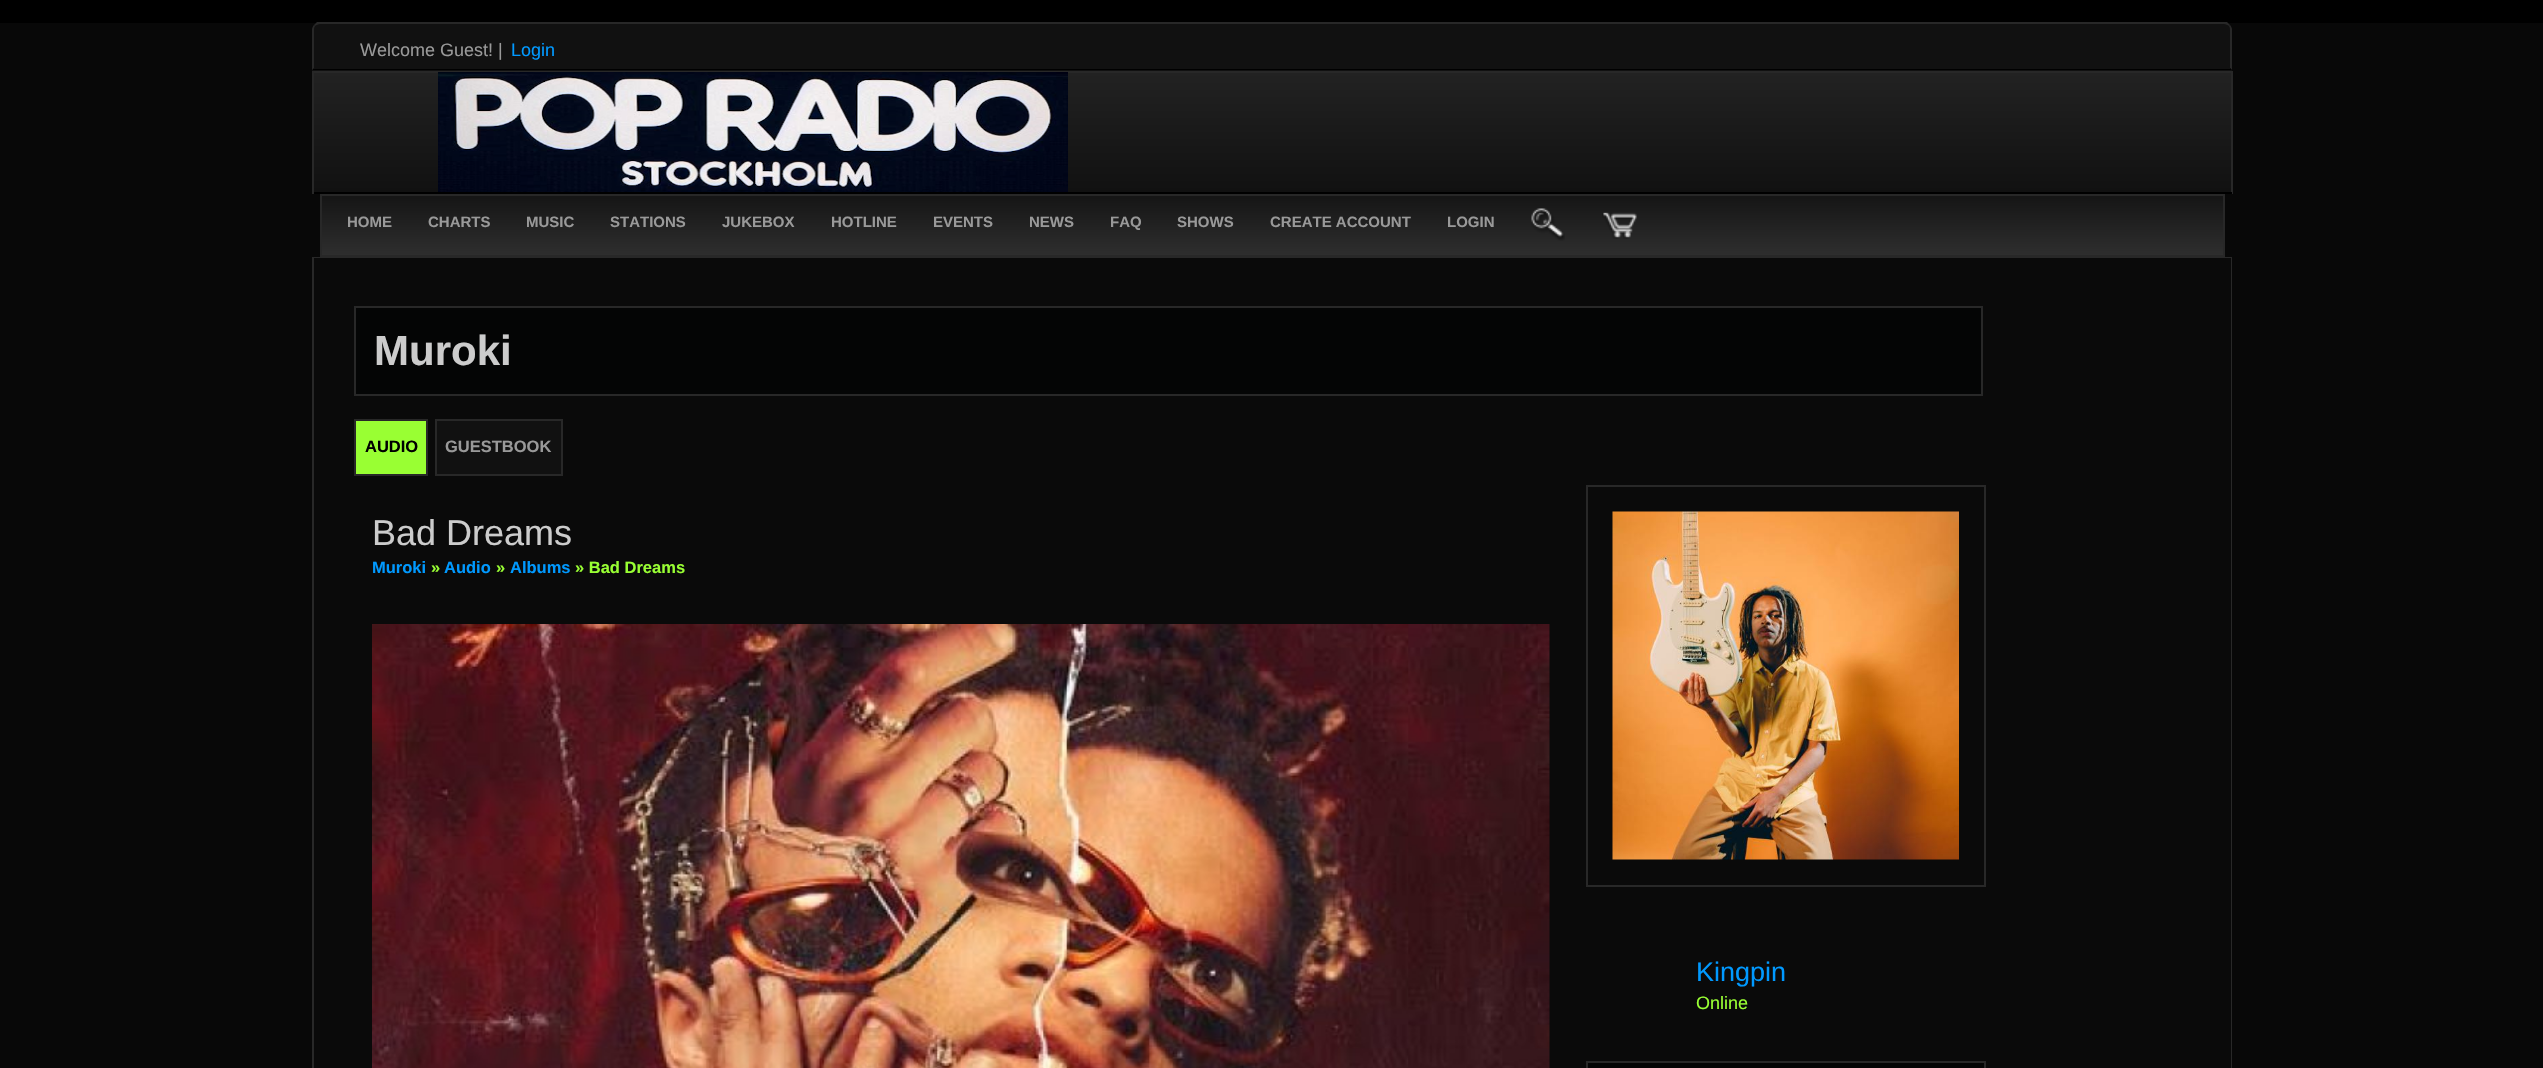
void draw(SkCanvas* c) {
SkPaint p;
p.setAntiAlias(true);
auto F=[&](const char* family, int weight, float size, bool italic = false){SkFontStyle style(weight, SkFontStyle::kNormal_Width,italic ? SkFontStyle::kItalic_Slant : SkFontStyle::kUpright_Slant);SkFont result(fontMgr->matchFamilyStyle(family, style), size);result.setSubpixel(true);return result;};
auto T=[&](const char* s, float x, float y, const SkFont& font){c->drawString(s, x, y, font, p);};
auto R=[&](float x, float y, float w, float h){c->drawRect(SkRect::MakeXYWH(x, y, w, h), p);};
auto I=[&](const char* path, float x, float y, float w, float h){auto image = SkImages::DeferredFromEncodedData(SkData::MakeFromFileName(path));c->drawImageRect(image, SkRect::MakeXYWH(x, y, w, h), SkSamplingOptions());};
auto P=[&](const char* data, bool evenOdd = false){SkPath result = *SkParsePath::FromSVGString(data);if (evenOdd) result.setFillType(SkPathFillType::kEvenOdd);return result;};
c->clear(0xff000000);
p.setColor(0xff080808);
R(0,23,2543,1045);
p.setColor(0xff111111);
c->drawPath(P("M320 23h1904c4.5 0 8 3.5 8 8v40h-1920v-40c0-4.5 3.5-8 8-8z"),p);
p.setColor(0xff282828);
c->drawPath(P("M320 24c-2 0-4 1-5 2l-1-1l3-3h1910l3 3l-1 1c-1-1-3-2-5-2z"),p);
c->drawPath(P("M2232 70v-40c0-2-1-4-2-5l-1 1c1 1 1 3 1 4v38z"),p);
p.setColor(0xff000000);
c->drawPath(P("M2232 70h-1920l2-2v1h1916v-1z"),p);
p.setColor(0xff282828);
c->drawPath(P("M312 30v40l2-2v-38c0-1 0-3 1-4l-1-1c-1 1-2 3-2 5z"),p);
auto f1 = F("Liberation Sans",400,18);
p.setColor(0xff999999);
T("Welcome Guest! |",360,56,f1);
p.setColor(0xff0099ff);
T("Login",511,56,f1);
{
const SkColor colors[] = {0xff222222,0xff111111};
const float stops[] = {0,1};
const SkPoint ends[] = {{1272,72}, {1272,192}};
p.setShader(SkGradientShader::MakeLinear(ends, colors, stops, 2, SkTileMode::kClamp));
p.setAlpha(255);
}
R(314,73,1917,119);
p.setShader(nullptr);
p.setColor(0xff282828);
R(312,71,1920,2);
R(2231,71,2,123);
p.setColor(0xff000000);
R(312,192,1920,2);
p.setColor(0xff282828);
R(312,71,2,123);
I("1.png",438,72,630,120);
{
const SkColor colors[] = {0xff151515,0xff2e2e2e};
const float stops[] = {0,1};
const SkPoint ends[] = {{1272,195}, {1272,255}};
p.setShader(SkGradientShader::MakeLinear(ends, colors, stops, 2, SkTileMode::kClamp));
p.setAlpha(255);
}
R(322,196,1901,59);
p.setStroke(true);
p.setStrokeWidth(2);
p.setShader(nullptr);
p.setColor(0xff282828);
c->drawRect(SkRect::MakeXYWH(321,195,1903,61),p);
auto f2 = F("Liberation Sans",700,15);
p.setStroke(false);
p.setColor(0xff999999);
T("HOME",347,227,f2);
T("CHARTS",428,227,f2);
T("MUSIC",526,227,f2);
T("STATIONS",610,227,f2);
T("JUKEBOX",722,227,f2);
T("HOTLINE",831,227,f2);
T("EVENTS",933,227,f2);
T("NEWS",1029,227,f2);
T("FAQ",1110,227,f2);
T("SHOWS",1177,227,f2);
T("CREATE ACCOUNT",1270,227,f2);
T("LOGIN",1447,227,f2);
I("2.png",1531,208,34,33);
I("3.png",1602,212,35,27);
p.setStroke(true);
p.setColor(0xff282828);
c->drawRect(SkRect::MakeXYWH(313,258,1918,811),p);
p.setStroke(false);
p.setColor(0xff0a0a0a);
R(314,258,1917,810);
p.setColor(0xff040505);
c->drawRect(SkRect::MakeXYWH(355,307,1627,88),p);
p.setStroke(true);
p.setColor(0xff282828);
c->drawRect(SkRect::MakeXYWH(355,307,1627,88),p);
auto f3 = F("Liberation Sans",700,42);
p.setStroke(false);
p.setColor(0xffcccccc);
T("Muroki",374,365,f3);
p.setColor(0xff99ff33);
c->drawRect(SkRect::MakeXYWH(355,420,72,55),p);
p.setStroke(true);
p.setColor(0xff282828);
c->drawRect(SkRect::MakeXYWH(355,420,72,55),p);
auto f4 = F("Liberation Sans",700,16.5);
p.setStroke(false);
p.setColor(0xff000000);
T("AUDIO",365,452,f4);
p.setColor(0xff111111);
c->drawRect(SkRect::MakeXYWH(436,420,126,55),p);
p.setStroke(true);
p.setColor(0xff282828);
c->drawRect(SkRect::MakeXYWH(436,420,126,55),p);
p.setStroke(false);
p.setColor(0xff999999);
T("GUESTBOOK",445,452,f4);
auto f5 = F("Liberation Sans",400,36);
p.setColor(0xffcccccc);
T("Bad Dreams",372,545,f5);
p.setColor(0xff0099ff);
T("Muroki",372,573,f4);
p.setColor(0xff99ff33);
T("»",431,573,f4);
p.setColor(0xff0099ff);
T("Audio",444,573,f4);
p.setColor(0xff99ff33);
T("»",496,573,f4);
p.setColor(0xff0099ff);
T("Albums",510,573,f4);
p.setColor(0xff99ff33);
T("» Bad Dreams",575,573,f4);
I("4.png",372,624,1178,444);
p.setStroke(true);
p.setColor(0xff282828);
c->drawRect(SkRect::MakeXYWH(1587,486,398,400),p);
I("5.png",1612,511,347,349);
auto f6 = F("Liberation Sans",400,27);
p.setStroke(false);
p.setColor(0xff0099ff);
T("Kingpin",1696,981,f6);
p.setColor(0xff99ff33);
T("Online",1696,1009,f1);
p.setColor(0xff040505);
c->drawRect(SkRect::MakeXYWH(1587,1062,398,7),p);
p.setStroke(true);
p.setColor(0xff282828);
c->drawRect(SkRect::MakeXYWH(1587,1062,398,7),p);
}
